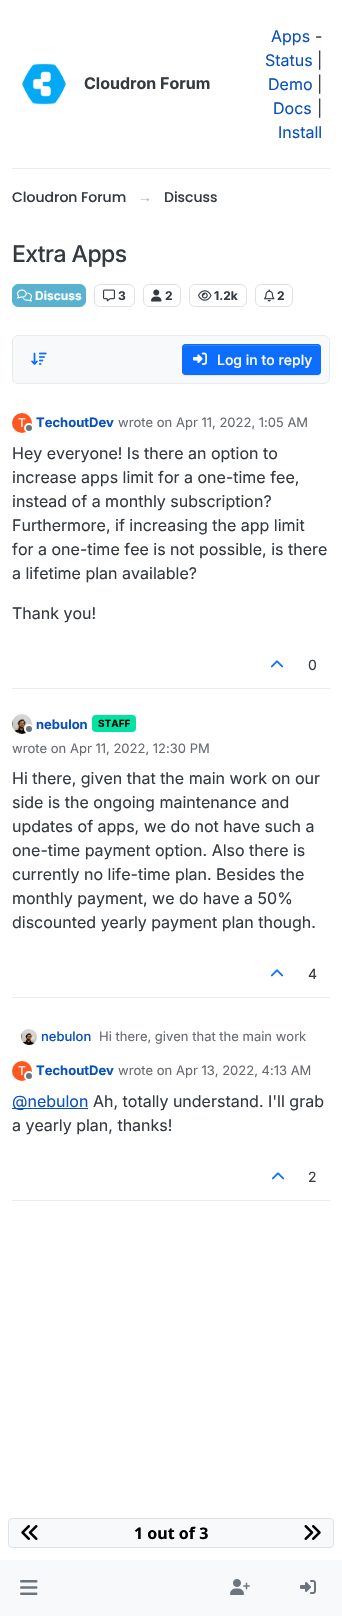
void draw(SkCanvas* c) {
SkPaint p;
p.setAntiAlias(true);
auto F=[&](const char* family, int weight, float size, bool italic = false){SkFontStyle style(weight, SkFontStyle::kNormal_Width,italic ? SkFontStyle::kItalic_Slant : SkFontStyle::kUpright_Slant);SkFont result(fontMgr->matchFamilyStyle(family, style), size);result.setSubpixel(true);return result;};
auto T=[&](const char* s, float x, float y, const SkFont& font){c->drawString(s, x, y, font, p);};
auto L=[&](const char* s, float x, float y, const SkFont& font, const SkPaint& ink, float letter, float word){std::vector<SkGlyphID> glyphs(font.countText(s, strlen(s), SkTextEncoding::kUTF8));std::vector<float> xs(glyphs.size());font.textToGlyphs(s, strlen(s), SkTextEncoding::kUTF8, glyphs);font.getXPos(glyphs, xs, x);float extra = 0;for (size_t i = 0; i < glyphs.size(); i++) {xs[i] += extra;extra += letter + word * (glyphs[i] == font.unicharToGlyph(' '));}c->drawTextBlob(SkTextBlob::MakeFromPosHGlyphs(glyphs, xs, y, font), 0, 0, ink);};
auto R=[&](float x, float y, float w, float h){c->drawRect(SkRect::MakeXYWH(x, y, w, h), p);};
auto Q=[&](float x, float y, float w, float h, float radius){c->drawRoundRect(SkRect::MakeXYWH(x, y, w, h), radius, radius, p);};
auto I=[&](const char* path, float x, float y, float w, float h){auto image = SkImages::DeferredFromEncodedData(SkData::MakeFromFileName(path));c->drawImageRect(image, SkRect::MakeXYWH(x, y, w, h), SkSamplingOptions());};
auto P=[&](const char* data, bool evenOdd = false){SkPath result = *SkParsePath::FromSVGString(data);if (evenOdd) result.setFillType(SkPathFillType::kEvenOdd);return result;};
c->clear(0xffffffff);
p.setColor(0xffe9ecef);
R(12,168,318,1);
I("1.png",22,63,44,42);
auto f1 = F("Inter",700,16);
p.setColor(0xff343a40);
T("Cloudron Forum",84,89,f1);
auto f2 = F("Inter",400,16);
p.setColor(0xff0951be);
T("Apps",271,42,f2);
p.setColor(0xff343a40);
T("-",315,42,f2);
p.setColor(0xff0951be);
T("Status",265,66,f2);
p.setColor(0xff343a40);
T("|",317,66,f2);
p.setColor(0xff0951be);
T("Demo",268,90,f2);
p.setColor(0xff343a40);
T("|",317,90,f2);
p.setColor(0xff0951be);
T("Docs",273,114,f2);
p.setColor(0xff343a40);
T("|",317,114,f2);
p.setColor(0xff0951be);
T("Install",278,138,f2);
auto f3 = F("Poppins",500,14);
p.setColor(0xff343a40);
T("Cloudron Forum",12,202,f3);
auto f4 = F("Liberation Sans",400,14);
p.setColor(0xffadb5bd);
T("→",138,202,f4);
p.setColor(0xff343a40);
T("Discuss",164,202,f3);
auto f5 = F("Inter",500,23);
L("Extra Apps",12,262,f5,p,-.5,0);
p.setColor(0xff59b3d0);
c->drawRoundRect(SkRect::MakeXYWH(12.5,284.5,73,22),5.5,5.5,p);
p.setStroke(true);
p.setStrokeWidth(1);
c->drawRoundRect(SkRect::MakeXYWH(12.5,284.5,73,22),5.5,5.5,p);
I("2.png",17,289,15,13);
auto f6 = F("Inter",700,12);
p.setStroke(false);
p.setColor(0xffffffff);
T("Discuss",35,300,f6);
p.setStroke(true);
p.setColor(0xffdee2e6);
c->drawRoundRect(SkRect::MakeXYWH(94.5,284.5,40,22),5.5,5.5,p);
I("3.png",103,289,12,13);
p.setStroke(false);
p.setColor(0xff343a40);
T("3",118,300,f6);
p.setStroke(true);
p.setColor(0xffdee2e6);
c->drawRoundRect(SkRect::MakeXYWH(143.5,284.5,37,22),5.5,5.5,p);
I("4.png",151,289,11,13);
p.setStroke(false);
p.setColor(0xff343a40);
T("2",165,300,f6);
p.setStroke(true);
p.setColor(0xffdee2e6);
c->drawRoundRect(SkRect::MakeXYWH(189.5,284.5,57,22),5.5,5.5,p);
I("5.png",198,290,14,11);
p.setStroke(false);
p.setColor(0xff343a40);
T("1.2k",214,300,f6);
p.setStroke(true);
p.setColor(0xffdee2e6);
c->drawRoundRect(SkRect::MakeXYWH(255.5,284.5,37,22),5.5,5.5,p);
I("6.png",264,289,11,13);
p.setStroke(false);
p.setColor(0xff343a40);
T("2",277,300,f6);
p.setColor(0xfff8f9fa);
c->drawRoundRect(SkRect::MakeXYWH(12.5,335.5,317,48),5.5,5.5,p);
p.setStroke(true);
p.setColor(0xffe9ecef);
c->drawRoundRect(SkRect::MakeXYWH(12.5,335.5,317,48),5.5,5.5,p);
I("7.png",31,352,16,13);
p.setStroke(false);
p.setColor(0x12000000);
p.setMaskFilter(SkMaskFilter::MakeBlur(kNormal_SkBlurStyle, .5));
c->drawRoundRect(SkRect::MakeXYWH(182,345,139,31),4,4,p);
p.setMaskFilter(nullptr);
p.setColor(0xff0d6efd);
Q(182,344,139,31,4);
p.setColor(0xff3184fd);
c->drawPath(P("M186 346h131c2 0 3 1 3 3c0-2 0-4-2-4h-133c-2 0-2 2-2 4c0-2 1-3 3-3z"),p);
p.setStroke(true);
p.setColor(0xff0d6efd);
c->drawRoundRect(SkRect::MakeXYWH(182.5,344.5,138,30),3.5,3.5,p);
I("8.png",193,352,14,13);
auto f7 = F("Inter",500,14);
p.setStroke(false);
p.setColor(0xffffffff);
T("Log in to reply",217,365,f7);
p.setColor(0xffff5722);
c->drawCircle(22,423,10,p);
auto f8 = F("Inter",400,12);
p.setColor(0xffffffff);
T("T",18,427,f8);
p.setColor(0xff6c757d);
c->drawCircle(29,428,4,p);
p.setStroke(true);
p.setStrokeWidth(2);
p.setColor(0xffffffff);
c->drawCircle(29,428,4,p);
auto f9 = F("Inter",700,13);
p.setStroke(false);
p.setColor(0xff0951be);
T("TechoutDev",36,427,f9);
auto f10 = F("Inter",400,13);
p.setColor(0xff676b70);
T("wrote on Apr 11, 2022, 1:05 AM",118,427,f10);
p.setColor(0xff343a40);
T("Hey everyone! Is there an option to",12,459,f2);
T("increase apps limit for a one-time fee,",12,483,f2);
T("instead of a monthly subscription?",12,507,f2);
T("Furthermore, if increasing the app limit",12,531,f2);
T("for a one-time fee is not possible, is there",12,555,f2);
T("a lifetime plan available?",12,579,f2);
T("Thank you!",12,619,f2);
p.setColor(0xffe9ecef);
R(12,688,318,1);
I("9.png",270,660,14,8);
auto f11 = F("Inter",400,14);
p.setColor(0xff343a40);
T("0",308,670,f11);
I("10.png",12,714,20,20);
p.setColor(0xff6c757d);
c->drawCircle(29,729,4,p);
p.setStroke(true);
p.setColor(0xffffffff);
c->drawCircle(29,729,4,p);
p.setStroke(false);
p.setColor(0xff0951be);
T("nebulon",36,729,f9);
p.setColor(0xff00e3a3);
Q(92,715,44,17,4);
auto f12 = F("Inter",700,10);
p.setColor(0xff000000);
T("STAFF",98,727,f12);
p.setColor(0xff676b70);
T("wrote on Apr 11, 2022, 12:30 PM",12,753,f10);
p.setColor(0xff343a40);
T("Hi there, given that the main work on our",12,784,f2);
T("side is the ongoing maintenance and",12,808,f2);
T("updates of apps, we do not have such a",12,832,f2);
T("one-time payment option. Also there is",12,856,f2);
T("currently no life-time plan. Besides the",12,880,f2);
T("monthly payment, we do have a 50%",12,904,f2);
T("discounted yearly payment plan though.",12,928,f2);
p.setColor(0xffe9ecef);
R(12,997,318,1);
I("9.png",270,969,14,8);
p.setColor(0xff343a40);
T("4",308,979,f11);
I("11.png",21,1029,16,16);
auto f13 = F("Inter",500,13);
p.setColor(0xff0951be);
T("nebulon",41,1041,f13);
p.setColor(0xff676b70);
T("Hi there, given that the main work",99,1041,f10);
p.setColor(0xffff5722);
c->drawCircle(22,1071,10,p);
p.setColor(0xffffffff);
T("T",18,1075,f8);
p.setColor(0xff6c757d);
c->drawCircle(29,1076,4,p);
p.setStroke(true);
p.setColor(0xffffffff);
c->drawCircle(29,1076,4,p);
p.setStroke(false);
p.setColor(0xff0951be);
T("TechoutDev",36,1075,f9);
p.setColor(0xff676b70);
T("wrote on Apr 13, 2022, 4:13 AM",118,1075,f10);
p.setColor(0xff0951be);
R(12,1108,76,1);
T("@nebulon",12,1107,f2);
p.setColor(0xff343a40);
T("Ah, totally understand. I'll grab",93,1107,f2);
T("a yearly plan, thanks!",12,1131,f2);
p.setColor(0xffe9ecef);
R(12,1200,318,1);
I("9.png",271,1172,14,8);
p.setColor(0xff343a40);
T("2",308,1182,f11);
p.setColor(0xfff8f9fa);
c->drawRoundRect(SkRect::MakeXYWH(8.5,1518.5,325,29),3.5,3.5,p);
p.setStroke(true);
p.setStrokeWidth(1);
p.setColor(0xffdee2e6);
c->drawRoundRect(SkRect::MakeXYWH(8.5,1518.5,325,29),3.5,3.5,p);
I("12.png",21,1525,17,15);
auto f14 = F("Noto Sans",700,16);
p.setStroke(false);
p.setColor(0xff000000);
T("1 out of 3",134,1539,f14);
I("13.png",304,1525,17,15);
p.setColor(0xfff8f9fa);
R(0,1560,342,56);
I("14.png",20,1580,18,15);
I("15.png",230,1579,20,16);
I("16.png",300,1580,16,14);
}
